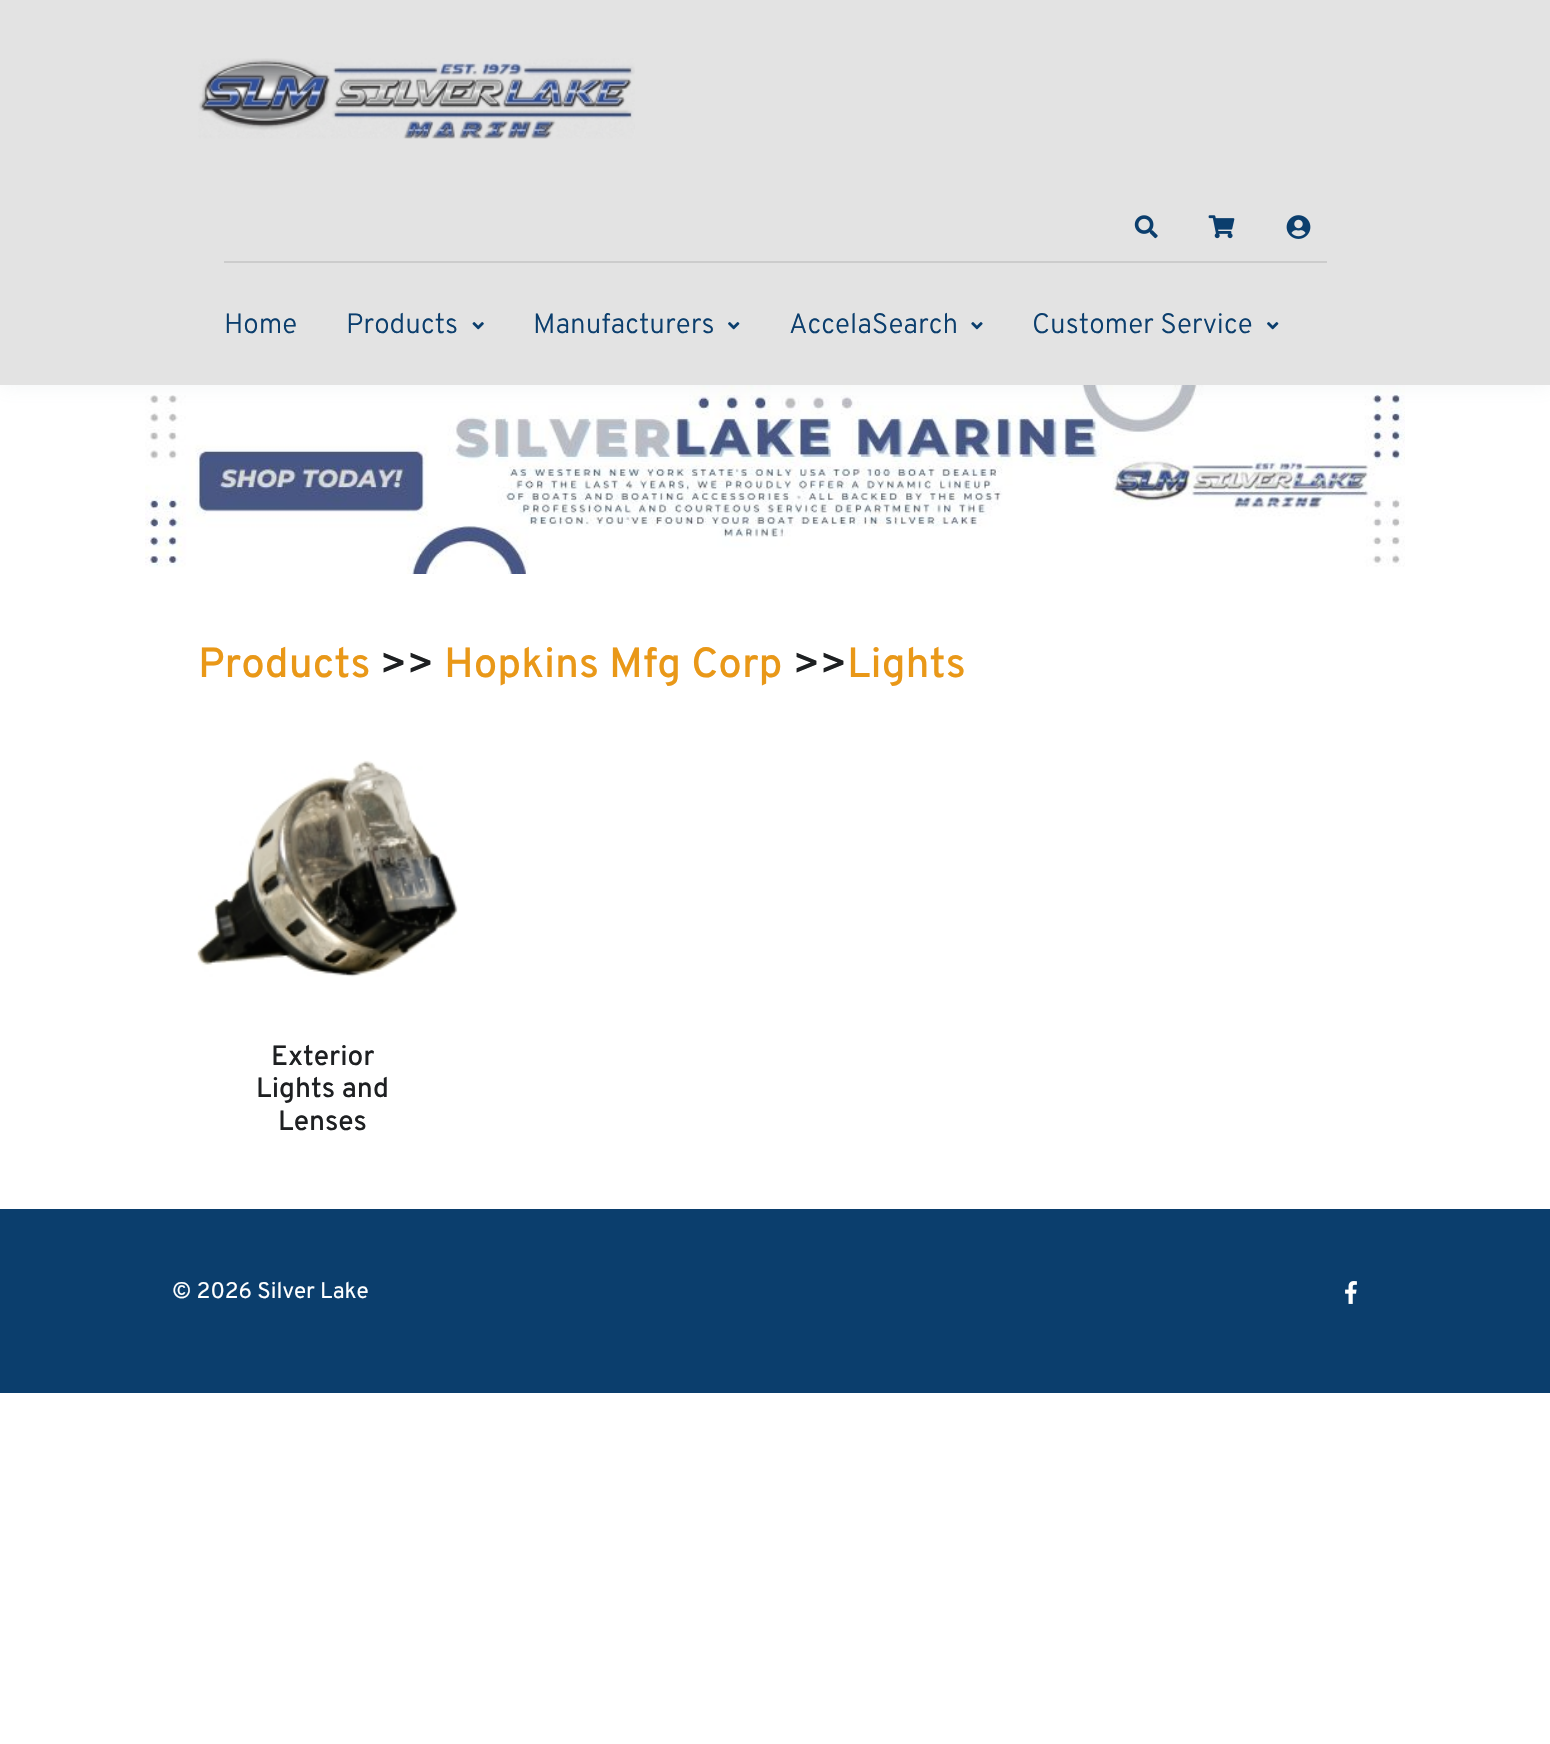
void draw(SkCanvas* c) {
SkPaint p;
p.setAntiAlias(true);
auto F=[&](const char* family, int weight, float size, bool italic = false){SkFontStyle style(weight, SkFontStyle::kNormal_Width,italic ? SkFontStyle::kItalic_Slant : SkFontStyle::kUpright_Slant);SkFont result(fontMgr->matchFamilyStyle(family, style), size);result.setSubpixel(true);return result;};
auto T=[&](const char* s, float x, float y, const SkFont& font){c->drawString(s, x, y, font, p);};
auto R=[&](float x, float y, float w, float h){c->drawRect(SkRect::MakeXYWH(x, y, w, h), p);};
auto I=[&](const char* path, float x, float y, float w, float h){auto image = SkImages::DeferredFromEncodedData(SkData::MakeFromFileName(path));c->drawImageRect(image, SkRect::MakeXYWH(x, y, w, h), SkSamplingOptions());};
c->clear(0xffffffff);
I("8.png",145,385,1260,189);
p.setColor(0x1a97a4af);
p.setMaskFilter(SkMaskFilter::MakeBlur(kNormal_SkBlurStyle, 9));
c->drawRect(SkRect::MakeXYWH(0,2,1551,385),p);
p.setMaskFilter(nullptr);
p.setColor(0xffe3e3e3);
R(0,0,1550,385);
I("1.png",198,58,437,81);
p.setColor(0xffcccccc);
R(224,261,1103,2);
I("2.png",1134,215,24,24);
I("3.png",1208,215,27,24);
I("4.png",1286,215,25,24);
auto f1 = F("Overpass",300,28);
p.setColor(0xff0b3e6d);
T("Home",224,333,f1);
T("Products",346,333,f1);
I("5.png",472,322,12,8);
T("Manufacturers",533,333,f1);
I("6.png",728,322,12,8);
T("AccelaSearch",789,333,f1);
I("7.png",971,322,12,8);
T("Customer Service",1032,333,f1);
I("6.png",1267,322,12,8);
auto f2 = F("Overpass",500,42);
p.setColor(0xffe99818);
T("Products",198,677,f2);
p.setColor(0xff1e2022);
T(">>",380,677,f2);
p.setColor(0xffe99818);
T("Hopkins Mfg Corp",444,677,f2);
p.setColor(0xff1e2022);
T(">>",793,677,f2);
p.setColor(0xffe99818);
T("Lights",847,677,f2);
I("9.png",197,760,261,217);
auto f3 = F("Overpass",500,28);
p.setColor(0xff1e2022);
T("Exterior",271,1065,f3);
T("Lights and",256,1097,f3);
T("Lenses",278,1130,f3);
p.setColor(0xff0b3e6d);
R(0,1209,1550,184);
auto f4 = F("Overpass",400,22.5);
p.setColor(0xffffffff);
T("© 2026 Silver Lake",172,1298,f4);
I("10.png",1345,1281,12,23);
}
